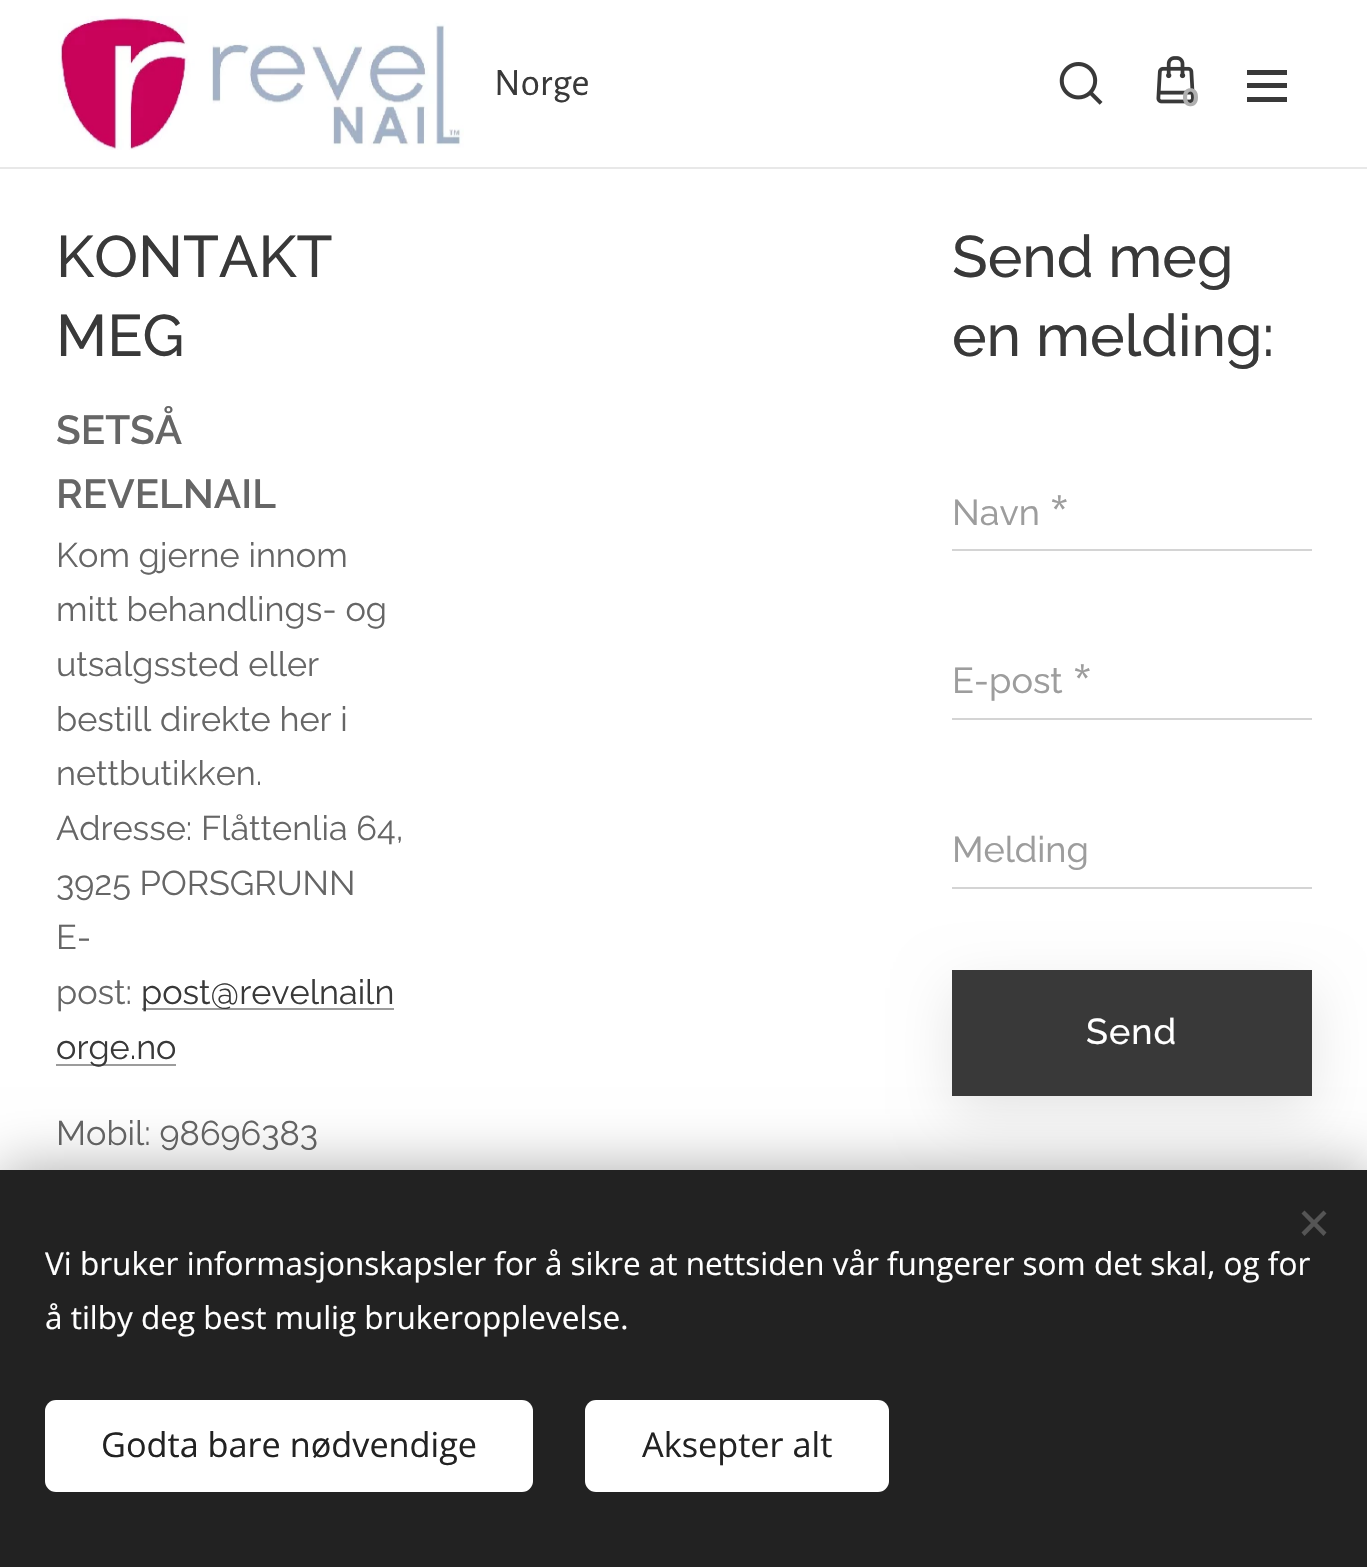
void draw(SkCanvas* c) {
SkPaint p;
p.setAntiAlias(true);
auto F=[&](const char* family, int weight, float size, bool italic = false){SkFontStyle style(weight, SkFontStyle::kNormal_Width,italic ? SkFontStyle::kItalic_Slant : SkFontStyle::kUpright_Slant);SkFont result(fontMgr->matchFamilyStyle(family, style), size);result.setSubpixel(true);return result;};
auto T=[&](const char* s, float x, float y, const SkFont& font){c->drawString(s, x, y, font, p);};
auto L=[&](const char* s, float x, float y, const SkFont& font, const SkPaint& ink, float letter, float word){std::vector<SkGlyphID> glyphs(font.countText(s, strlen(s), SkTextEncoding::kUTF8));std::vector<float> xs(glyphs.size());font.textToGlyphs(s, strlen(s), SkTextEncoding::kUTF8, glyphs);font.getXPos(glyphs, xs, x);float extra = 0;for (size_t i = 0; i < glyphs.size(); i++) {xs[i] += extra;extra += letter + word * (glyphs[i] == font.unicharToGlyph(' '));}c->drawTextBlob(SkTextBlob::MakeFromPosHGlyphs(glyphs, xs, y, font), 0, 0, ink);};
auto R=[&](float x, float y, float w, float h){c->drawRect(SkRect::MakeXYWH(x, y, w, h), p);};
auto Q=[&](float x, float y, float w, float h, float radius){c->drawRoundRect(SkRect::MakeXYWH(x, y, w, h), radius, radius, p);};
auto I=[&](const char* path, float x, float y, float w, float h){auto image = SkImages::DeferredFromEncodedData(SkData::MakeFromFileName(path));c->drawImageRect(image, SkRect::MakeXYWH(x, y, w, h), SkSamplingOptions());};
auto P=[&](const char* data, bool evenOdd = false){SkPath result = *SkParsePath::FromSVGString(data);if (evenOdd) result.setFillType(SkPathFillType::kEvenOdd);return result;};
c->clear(0xffffffff);
p.setColor(0xffe8e8e8);
R(0,167,1367,2);
I("1.png",58,16,406,134);
auto f1 = F("Alegreya Sans",400,39);
p.setColor(0xff393939);
T("Norge",494,95,f1);
I("2.png",1059,62,44,43);
I("3.png",1156,56,39,48);
auto f2 = F("Montserrat",700,25);
p.setColor(0xffb0b0b0);
T("0",1182,106,f2);
p.setColor(0xff393939);
R(1247,83,40,5);
R(1247,70,40,5);
R(1247,97,40,5);
auto f3 = F("Raleway",500,58.5);
T("KONTAKT",56,277,f3);
T("MEG",56,356,f3);
auto f4 = F("Raleway",600,40.5);
p.setColor(0xff666666);
T("SETSÅ",56,444,f4);
T("REVELNAIL",56,508,f4);
auto f5 = F("Raleway",400,34.25);
T("Kom gjerne innom",56,567,f5);
T("mitt behandlings- og",56,621,f5);
T("utsalgssted eller",56,676,f5);
T("bestill direkte her i",56,731,f5);
T("nettbutikken.",56,785,f5);
T("Adresse: Flåttenlia 64,",56,840,f5);
T("3925 PORSGRUNN",56,895,f5);
T("E-",56,949,f5);
T("post:",56,1004,f5);
p.setColor(0xff9c9c9c);
R(142,1008,252,2);
p.setColor(0xff393939);
T("post@revelnailn",141,1004,f5);
p.setColor(0xff9c9c9c);
R(56,1064,120,2);
p.setColor(0xff393939);
T("orge.no",56,1059,f5);
p.setColor(0xff666666);
T("Mobil: 98696383",56,1145,f5);
p.setColor(0xff393939);
T("Send meg",952,277,f3);
T("en melding:",952,356,f3);
auto f6 = F("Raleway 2",400,36);
p.setColor(0xff9d9d9d);
T("Navn",952,525,f6);
auto f7 = F("Roboto Flex",400,31.5);
T("*",1051,518,f7);
p.setColor(0xffd4d4d4);
R(952,549,360,2);
p.setColor(0xff9d9d9d);
T("E-post",952,693,f6);
T("*",1074,687,f7);
p.setColor(0xffd4d4d4);
R(952,718,360,2);
p.setColor(0xff9d9d9d);
T("Melding",952,862,f6);
p.setColor(0xffd4d4d4);
R(952,887,360,2);
p.setColor(0x1a000000);
p.setMaskFilter(SkMaskFilter::MakeBlur(kNormal_SkBlurStyle, 28));
c->drawRect(SkRect::MakeXYWH(952,988,360,126),p);
p.setMaskFilter(nullptr);
p.setColor(0xff393939);
R(952,970,360,126);
auto f8 = F("Raleway",500,36);
p.setColor(0xffffffff);
L("Send",1086,1044,f8,p,1,0);
p.setColor(0x54000000);
p.setMaskFilter(SkMaskFilter::MakeBlur(kNormal_SkBlurStyle, 28));
c->drawRect(SkRect::MakeXYWH(0,1170,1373,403),p);
p.setMaskFilter(nullptr);
p.setColor(0xff222222);
R(0,1170,1367,397);
p.setColor(0xff555555);
c->drawPath(P("M1301.5 1232.5l22-22l3 3l-22 22.5z"),p);
c->drawPath(P("M1304.5 1210.5l22 22l-3 3.5l-22-22.5z"),p);
auto f9 = F("Open Sans",400,31.5);
p.setColor(0xffffffff);
T("Vi bruker informasjonskapsler for å sikre at nettsiden vår fungerer som det skal, og for",45,1275,f9);
T("å tilby deg best mulig brukeropplevelse.",45,1329,f9);
Q(45,1400,488,92,11);
auto f10 = F("Open Sans",400,34.25);
p.setColor(0xff222222);
T("Godta bare nødvendige",101,1457,f10);
p.setColor(0xffffffff);
Q(585,1400,304,92,11);
p.setColor(0xff222222);
T("Aksepter alt",642,1457,f10);
}
